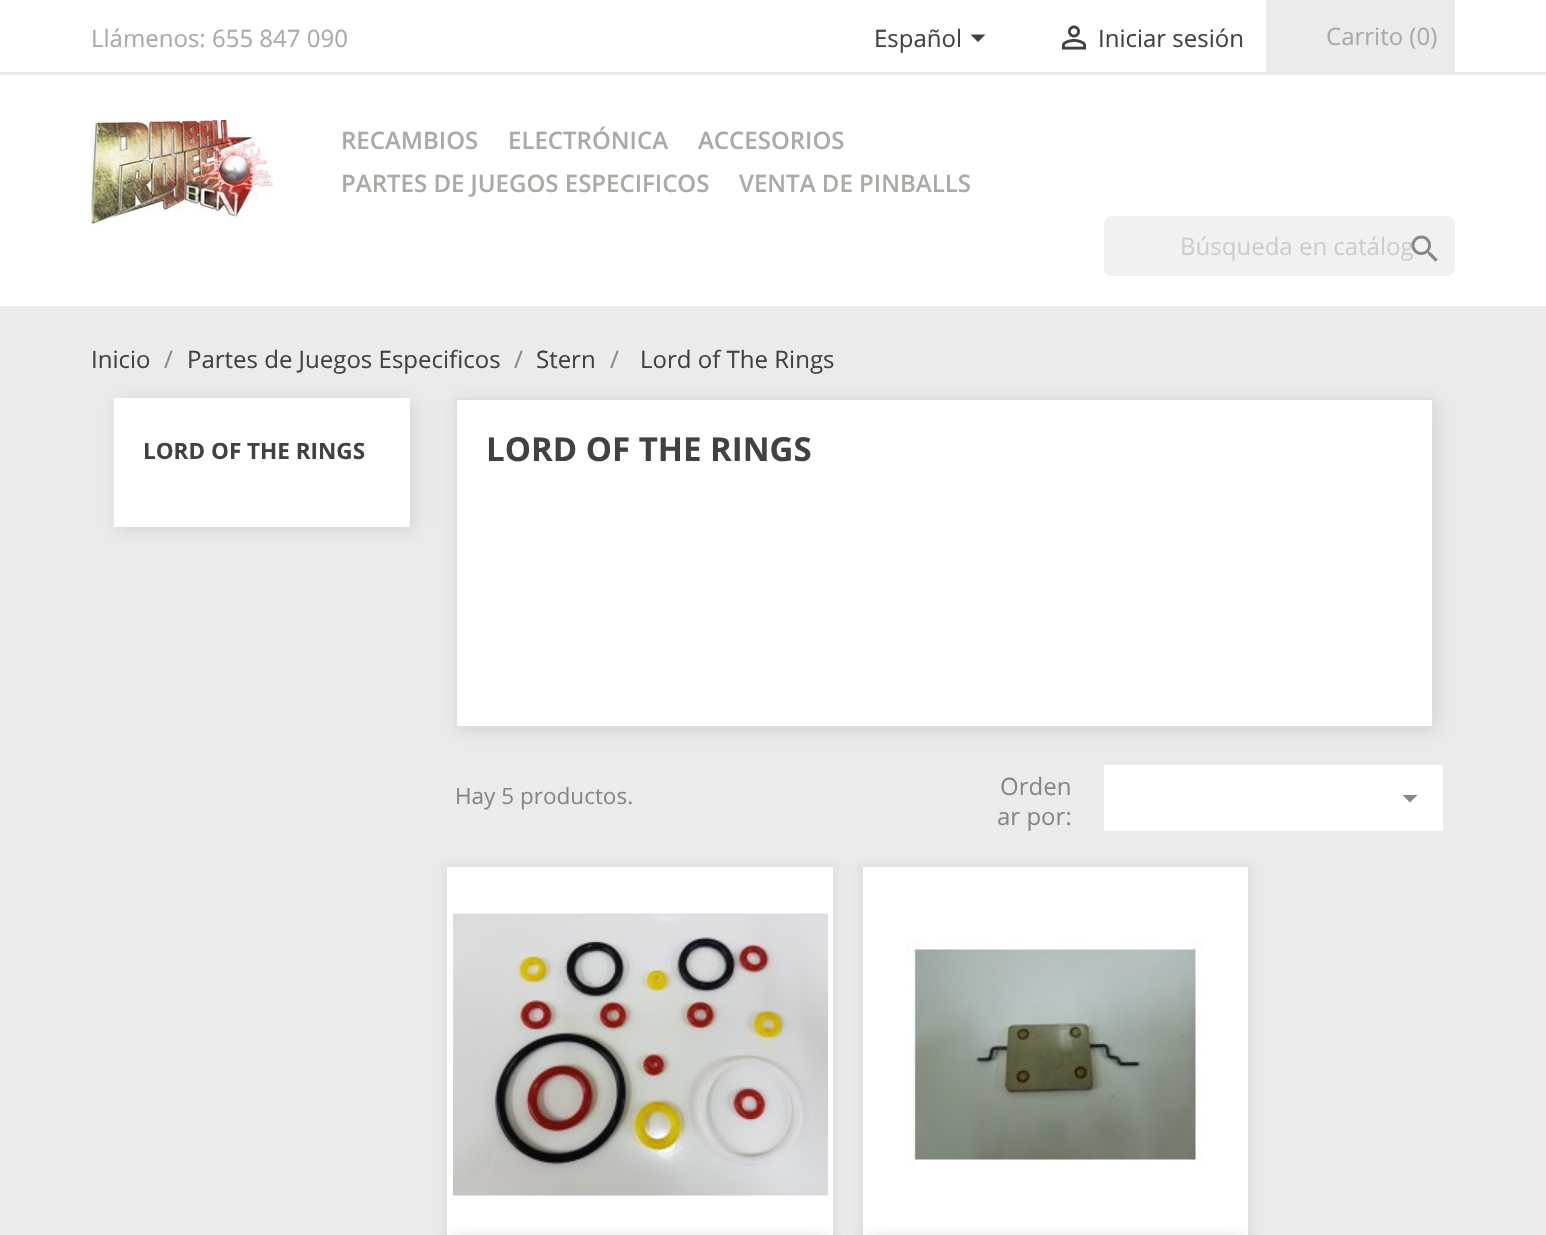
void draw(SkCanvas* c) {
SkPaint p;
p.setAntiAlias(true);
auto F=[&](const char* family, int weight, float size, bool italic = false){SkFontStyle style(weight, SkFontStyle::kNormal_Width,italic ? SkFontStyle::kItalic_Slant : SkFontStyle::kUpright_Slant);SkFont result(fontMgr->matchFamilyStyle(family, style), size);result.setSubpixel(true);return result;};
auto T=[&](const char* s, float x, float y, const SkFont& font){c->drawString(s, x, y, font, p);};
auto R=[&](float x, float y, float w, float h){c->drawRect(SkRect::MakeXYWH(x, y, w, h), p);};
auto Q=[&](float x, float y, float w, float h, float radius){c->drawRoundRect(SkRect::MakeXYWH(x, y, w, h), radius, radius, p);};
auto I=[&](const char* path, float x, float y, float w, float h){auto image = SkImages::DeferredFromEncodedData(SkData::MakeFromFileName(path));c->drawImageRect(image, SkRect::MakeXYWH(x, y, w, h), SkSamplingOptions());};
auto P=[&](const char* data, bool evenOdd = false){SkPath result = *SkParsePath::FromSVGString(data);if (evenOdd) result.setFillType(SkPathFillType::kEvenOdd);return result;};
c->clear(0xffffffff);
p.setColor(0xffebebeb);
R(0,72,1546,3);
auto f1 = F("Open Sans",400,24);
p.setColor(0xffacaaa6);
T("Llámenos: 655 847 090",91,47,f1);
p.setColor(0xff414141);
T("Español",874,47,f1);
c->drawPath(P("M970.5 34.5h15l-7.5 7.5z"),p);
I("1.png",1061,25,26,25);
T("Iniciar sesión",1098,47,f1);
p.setColor(0xffebebeb);
R(1266,0,189,72);
p.setColor(0xffacaaa6);
T("Carrito (0)",1326,45,f1);
I("2.png",91,120,182,105);
auto f2 = F("Open Sans",600,24);
T("RECAMBIOS",341,149,f2);
T("ELECTRÓNICA",508,149,f2);
T("ACCESORIOS",698,149,f2);
T("PARTES DE JUEGOS ESPECIFICOS",341,192,f2);
T("VENTA DE PINBALLS",739,192,f2);
p.setColor(0xfff1f1f1);
Q(1104,216,351,60,8);
p.setColor(0xffcecdcc);
T("Búsqueda en catálog",1180,255,f1);
I("3.png",1411,235,27,27);
p.setColor(0xffebebeb);
R(0,306,1546,929);
p.setColor(0xff414141);
T("Inicio",91,368,f1);
p.setColor(0xff878787);
T("/",164,368,f1);
p.setColor(0xff414141);
T("Partes de Juegos Especificos",187,368,f1);
p.setColor(0xff878787);
T("/",514,368,f1);
p.setColor(0xff414141);
T("Stern",536,368,f1);
p.setColor(0xff878787);
T("/",610,368,f1);
p.setColor(0xff414141);
T("Lord of The Rings",640,368,f1);
p.setColor(0x1a000000);
p.setMaskFilter(SkMaskFilter::MakeBlur(kNormal_SkBlurStyle, 8));
c->drawRect(SkRect::MakeXYWH(117,401,296,129),p);
p.setMaskFilter(nullptr);
p.setColor(0xffffffff);
R(114,398,296,129);
auto f3 = F("Open Sans",700,22.5);
p.setColor(0xff414141);
T("LORD OF THE RINGS",143,459,f3);
p.setColor(0x1a000000);
p.setMaskFilter(SkMaskFilter::MakeBlur(kNormal_SkBlurStyle, 8));
c->drawRect(SkRect::MakeXYWH(458,401,979,330),p);
p.setMaskFilter(nullptr);
p.setColor(0xffffffff);
c->drawRect(SkRect::MakeXYWH(456,399,977,328),p);
p.setStroke(true);
p.setStrokeWidth(2);
p.setColor(0xffdfdfdf);
c->drawRect(SkRect::MakeXYWH(456,399,977,328),p);
auto f4 = F("Open Sans",700,33);
p.setStroke(false);
p.setColor(0xff414141);
T("LORD OF THE RINGS",486,461,f4);
auto f5 = F("Open Sans",400,22.5);
p.setColor(0xff878787);
T("Hay 5 productos.",455,804,f5);
T("Orden",1000,795,f1);
T("ar por:",997,825,f1);
p.setColor(0xffffffff);
R(1104,765,339,66);
p.setColor(0xff878787);
c->drawPath(P("M1402.5 795h15l-7.5 7.5z"),p);
p.setColor(0x0d000000);
p.setMaskFilter(SkMaskFilter::MakeBlur(kNormal_SkBlurStyle, 4));
c->drawRect(SkRect::MakeXYWH(443,863,394,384),p);
p.setMaskFilter(nullptr);
p.setColor(0xffffffff);
R(447,867,386,368);
I("4.png",453,913,375,283);
p.setColor(0x33000000);
p.setMaskFilter(SkMaskFilter::MakeBlur(kNormal_SkBlurStyle, 7.5));
c->drawRect(SkRect::MakeXYWH(455,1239,370,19),p);
p.setMaskFilter(nullptr);
p.setColor(0x0d000000);
p.setMaskFilter(SkMaskFilter::MakeBlur(kNormal_SkBlurStyle, 4));
c->drawRect(SkRect::MakeXYWH(858,863,395,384),p);
p.setMaskFilter(nullptr);
p.setColor(0xffffffff);
R(863,867,385,368);
I("5.png",906,939,298,228);
p.setColor(0x33000000);
p.setMaskFilter(SkMaskFilter::MakeBlur(kNormal_SkBlurStyle, 7.5));
c->drawRect(SkRect::MakeXYWH(870,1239,371,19),p);
p.setMaskFilter(nullptr);
}
